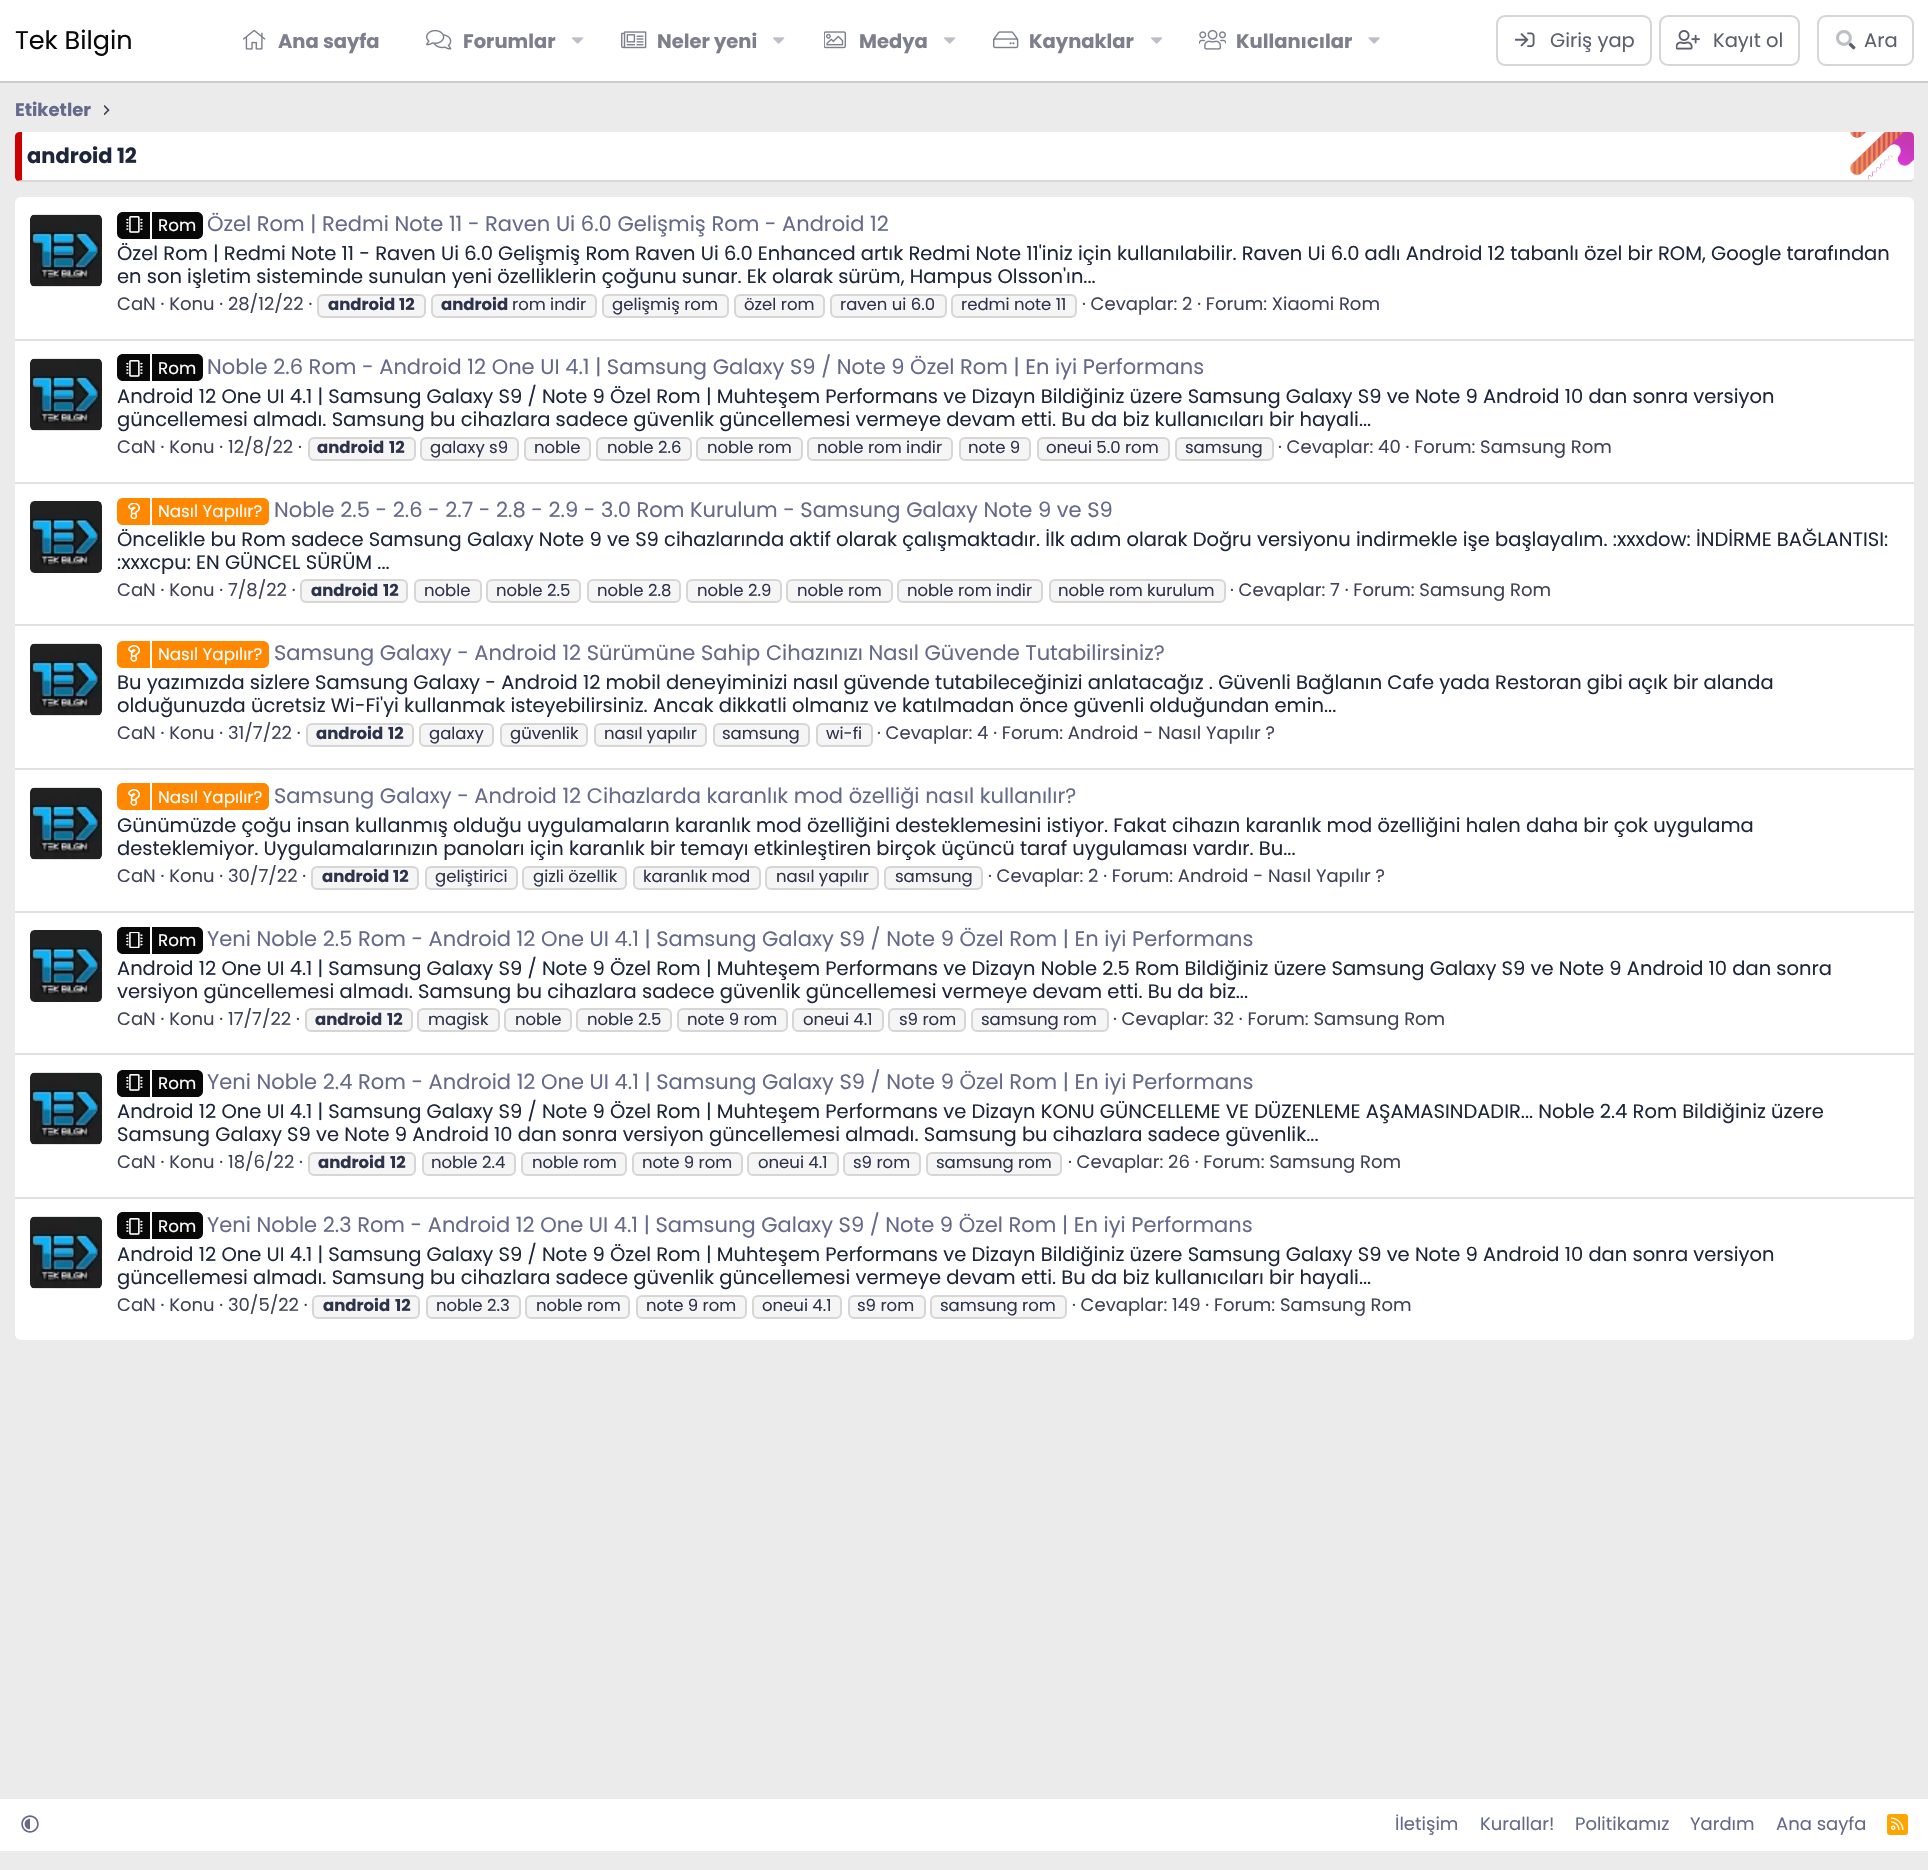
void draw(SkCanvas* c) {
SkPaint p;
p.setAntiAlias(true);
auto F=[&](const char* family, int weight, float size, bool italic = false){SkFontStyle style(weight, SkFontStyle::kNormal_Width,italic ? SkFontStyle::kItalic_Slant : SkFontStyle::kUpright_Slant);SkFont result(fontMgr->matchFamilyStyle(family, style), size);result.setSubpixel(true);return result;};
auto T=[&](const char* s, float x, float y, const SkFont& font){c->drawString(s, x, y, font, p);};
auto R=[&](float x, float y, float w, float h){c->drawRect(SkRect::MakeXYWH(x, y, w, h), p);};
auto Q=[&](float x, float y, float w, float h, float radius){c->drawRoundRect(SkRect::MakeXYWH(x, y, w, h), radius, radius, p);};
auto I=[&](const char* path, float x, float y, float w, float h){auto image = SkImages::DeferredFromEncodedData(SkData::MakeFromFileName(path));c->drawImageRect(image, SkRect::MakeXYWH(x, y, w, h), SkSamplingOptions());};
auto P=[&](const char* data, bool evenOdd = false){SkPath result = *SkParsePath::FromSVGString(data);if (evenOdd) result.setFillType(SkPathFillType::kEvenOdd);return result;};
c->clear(0xffebebeb);
p.setColor(0xffffffff);
R(0,0,1928,81);
p.setColor(0xffcccccc);
R(0,81,1928,2);
auto f1 = F("Poppins",400,25.5);
p.setColor(0xff0a0a0a);
T("Tek Bilgin",15,49,f1);
I("1.png",243,29,23,21);
auto f2 = F("Poppins",700,19.5);
p.setColor(0xff7d7f8d);
T("Ana sayfa",278,48,f2);
I("2.png",426,29,26,21);
T("Forumlar",463,48,f2);
I("3.png",572,37,12,7);
I("4.png",621,31,26,18);
T("Neler yeni",657,48,f2);
I("3.png",773,37,12,7);
I("5.png",824,31,22,18);
T("Medya",859,48,f2);
I("3.png",944,37,12,7);
I("6.png",993,31,26,18);
T("Kaynaklar",1029,48,f2);
I("3.png",1151,37,12,7);
I("7.png",1199,29,27,21);
T("Kullanıcılar",1236,48,f2);
I("8.png",1368,37,12,7);
p.setStroke(true);
p.setStrokeWidth(2);
p.setColor(0xffd6d6d6);
c->drawRoundRect(SkRect::MakeXYWH(1497,16,154,49),8,8,p);
I("9.png",1515,32,20,16);
auto f3 = F("Poppins",400,19.5);
p.setStroke(false);
p.setColor(0xff5c5f70);
T("Giriş yap",1550,47,f3);
p.setStroke(true);
p.setColor(0xffd6d6d6);
c->drawRoundRect(SkRect::MakeXYWH(1660,16,139,49),8,8,p);
I("10.png",1676,30,24,20);
p.setStroke(false);
p.setColor(0xff5c5f70);
T("Kayıt ol",1713,47,f3);
p.setStroke(true);
p.setColor(0xffd6d6d6);
c->drawRoundRect(SkRect::MakeXYWH(1818,16,95,49),8,8,p);
I("11.png",1836,30,20,20);
p.setStroke(false);
p.setColor(0xff5c5f70);
T("Ara",1864,47,f3);
auto f4 = F("Poppins",700,18);
p.setColor(0xff656a8b);
T("Etiketler",15,116,f4);
I("12.png",104,105,6,11);
p.setColor(0xffffffff);
Q(15,132,1899,50,5);
I("13.png",1850,132,64,48);
p.setColor(0xffd9d9d9);
c->drawPath(P("M18 182l-1-1l5-1h1888c2 0 4-1 4-3c0 2-1 4-3 5z"),p);
p.setColor(0xffcc0000);
c->drawPath(P("M20 132h2v48l-5 1c-1-1-2-3-2-4v-41c0-2 2-4 5-4z"),p);
auto f5 = F("Poppins",700,21);
p.setColor(0xff1d263a);
T("android 12",27,163,f5);
p.setColor(0xffffffff);
Q(15,197,1899,1143,6);
I("14.png",30,214,72,73);
p.setColor(0xff080808);
c->drawPath(P("M123 212h27v27h-27c-3.5 0-6-2.5-6-6v-15c0-3.5 2.5-6 6-6z"),p);
I("15.png",126,216,17,17);
c->drawPath(P("M152 212h45c3.5 0 6 2.5 6 6v15c0 3.5-2.5 6-6 6h-45z"),p);
auto f6 = F("Poppins",400,16.75);
p.setColor(0xffffffff);
T("Rom",158,231,f6);
auto f7 = F("Poppins",400,21);
p.setColor(0xff656a8b);
T("Özel Rom | Redmi Note 11 - Raven Ui 6.0 Gelişmiş Rom - Android 12",207,231,f7);
p.setColor(0xff1d263a);
T("Özel Rom | Redmi Note 11 - Raven Ui 6.0 Gelişmiş Rom Raven Ui 6.0 Enhanced artık Redmi Note 11'iniz için kullanılabilir. Raven Ui 6.0 adlı Android 12 tabanlı özel bir ROM, Google tarafından",117,260,f3);
T("en son işletim sisteminde sunulan yeni özelliklerin çoğunu sunar. Ek olarak sürüm, Hampus Olsson'ın...",117,283,f3);
auto f8 = F("Poppins",400,18);
p.setColor(0xff404259);
T("CaN · Konu · 28/12/22 ·",117,310,f8);
p.setColor(0xfff5f5f5);
c->drawRoundRect(SkRect::MakeXYWH(318,295,107,22),5,5,p);
p.setStroke(true);
p.setColor(0xffd6d6d6);
c->drawRoundRect(SkRect::MakeXYWH(318,295,107,22),5,5,p);
auto f9 = F("Poppins",700,16.5);
p.setStroke(false);
p.setColor(0xff2d334b);
T("android",328,310,f9);
T("12",399,310,f9);
p.setColor(0xfff5f5f5);
c->drawRoundRect(SkRect::MakeXYWH(432,295,164,22),5,5,p);
p.setStroke(true);
p.setColor(0xffd6d6d6);
c->drawRoundRect(SkRect::MakeXYWH(432,295,164,22),5,5,p);
p.setStroke(false);
p.setColor(0xff2d334b);
T("android",441,310,f9);
auto f10 = F("Poppins",400,16.5);
T("rom indir",512,310,f10);
p.setColor(0xfff5f5f5);
c->drawRoundRect(SkRect::MakeXYWH(603,295,125,22),5,5,p);
p.setStroke(true);
p.setColor(0xffd6d6d6);
c->drawRoundRect(SkRect::MakeXYWH(603,295,125,22),5,5,p);
p.setStroke(false);
p.setColor(0xff2d334b);
T("gelişmiş rom",612,310,f10);
p.setColor(0xfff5f5f5);
c->drawRoundRect(SkRect::MakeXYWH(735,295,89,22),5,5,p);
p.setStroke(true);
p.setColor(0xffd6d6d6);
c->drawRoundRect(SkRect::MakeXYWH(735,295,89,22),5,5,p);
p.setStroke(false);
p.setColor(0xff2d334b);
T("özel rom",744,310,f10);
p.setColor(0xfff5f5f5);
c->drawRoundRect(SkRect::MakeXYWH(831,295,115,22),5,5,p);
p.setStroke(true);
p.setColor(0xffd6d6d6);
c->drawRoundRect(SkRect::MakeXYWH(831,295,115,22),5,5,p);
p.setStroke(false);
p.setColor(0xff2d334b);
T("raven ui 6.0",840,310,f10);
p.setColor(0xfff5f5f5);
c->drawRoundRect(SkRect::MakeXYWH(952,295,124,22),5,5,p);
p.setStroke(true);
p.setColor(0xffd6d6d6);
c->drawRoundRect(SkRect::MakeXYWH(952,295,124,22),5,5,p);
p.setStroke(false);
p.setColor(0xff2d334b);
T("redmi note 11",961,310,f10);
p.setColor(0xff404259);
T("· Cevaplar: 2 · Forum: Xiaomi Rom",1082,310,f8);
p.setColor(0xffe0e0e0);
R(15,339,1899,2);
I("14.png",30,358,72,73);
p.setColor(0xff080808);
c->drawPath(P("M123 354h27v27h-27c-3.5 0-6-2.5-6-6v-15c0-3.5 2.5-6 6-6z"),p);
I("15.png",126,360,17,17);
c->drawPath(P("M152 354h45c3.5 0 6 2.5 6 6v15c0 3.5-2.5 6-6 6h-45z"),p);
p.setColor(0xffffffff);
T("Rom",158,374,f6);
p.setColor(0xff656a8b);
T("Noble 2.6 Rom - Android 12 One UI 4.1 | Samsung Galaxy S9 / Note 9 Özel Rom | En iyi Performans",207,374,f7);
p.setColor(0xff1d263a);
T("Android 12 One UI 4.1 | Samsung Galaxy S9 / Note 9 Özel Rom | Muhteşem Performans ve Dizayn Bildiğiniz üzere Samsung Galaxy S9 ve Note 9 Android 10 dan sonra versiyon",117,403,f3);
T("güncellemesi almadı. Samsung bu cihazlara sadece güvenlik güncellemesi vermeye devam etti. Bu da biz kullanıcıları bir hayali...",117,426,f3);
p.setColor(0xff404259);
T("CaN · Konu · 12/8/22 ·",117,453,f8);
p.setColor(0xfff5f5f5);
c->drawRoundRect(SkRect::MakeXYWH(309,438,106,22),5,5,p);
p.setStroke(true);
p.setColor(0xffd6d6d6);
c->drawRoundRect(SkRect::MakeXYWH(309,438,106,22),5,5,p);
p.setStroke(false);
p.setColor(0xff2d334b);
T("android",317,453,f9);
T("12",389,453,f9);
p.setColor(0xfff5f5f5);
c->drawRoundRect(SkRect::MakeXYWH(421,438,97,22),5,5,p);
p.setStroke(true);
p.setColor(0xffd6d6d6);
c->drawRoundRect(SkRect::MakeXYWH(421,438,97,22),5,5,p);
p.setStroke(false);
p.setColor(0xff2d334b);
T("galaxy s9",430,453,f10);
p.setColor(0xfff5f5f5);
c->drawRoundRect(SkRect::MakeXYWH(525,438,65,22),5,5,p);
p.setStroke(true);
p.setColor(0xffd6d6d6);
c->drawRoundRect(SkRect::MakeXYWH(525,438,65,22),5,5,p);
p.setStroke(false);
p.setColor(0xff2d334b);
T("noble",534,453,f10);
p.setColor(0xfff5f5f5);
c->drawRoundRect(SkRect::MakeXYWH(597,438,94,22),5,5,p);
p.setStroke(true);
p.setColor(0xffd6d6d6);
c->drawRoundRect(SkRect::MakeXYWH(597,438,94,22),5,5,p);
p.setStroke(false);
p.setColor(0xff2d334b);
T("noble 2.6",607,453,f10);
p.setColor(0xfff5f5f5);
c->drawRoundRect(SkRect::MakeXYWH(697,438,105,22),5,5,p);
p.setStroke(true);
p.setColor(0xffd6d6d6);
c->drawRoundRect(SkRect::MakeXYWH(697,438,105,22),5,5,p);
p.setStroke(false);
p.setColor(0xff2d334b);
T("noble rom",707,453,f10);
p.setColor(0xfff5f5f5);
c->drawRoundRect(SkRect::MakeXYWH(808,438,144,22),5,5,p);
p.setStroke(true);
p.setColor(0xffd6d6d6);
c->drawRoundRect(SkRect::MakeXYWH(808,438,144,22),5,5,p);
p.setStroke(false);
p.setColor(0xff2d334b);
T("noble rom indir",817,453,f10);
p.setColor(0xfff5f5f5);
c->drawRoundRect(SkRect::MakeXYWH(960,438,70,22),5,5,p);
p.setStroke(true);
p.setColor(0xffd6d6d6);
c->drawRoundRect(SkRect::MakeXYWH(960,438,70,22),5,5,p);
p.setStroke(false);
p.setColor(0xff2d334b);
T("note 9",968,453,f10);
p.setColor(0xfff5f5f5);
c->drawRoundRect(SkRect::MakeXYWH(1038,438,131,22),5,5,p);
p.setStroke(true);
p.setColor(0xffd6d6d6);
c->drawRoundRect(SkRect::MakeXYWH(1038,438,131,22),5,5,p);
p.setStroke(false);
p.setColor(0xff2d334b);
T("oneui 5.0 rom",1046,453,f10);
p.setColor(0xfff5f5f5);
c->drawRoundRect(SkRect::MakeXYWH(1176,438,97,22),5,5,p);
p.setStroke(true);
p.setColor(0xffd6d6d6);
c->drawRoundRect(SkRect::MakeXYWH(1176,438,97,22),5,5,p);
p.setStroke(false);
p.setColor(0xff2d334b);
T("samsung",1185,453,f10);
p.setColor(0xff404259);
T("· Cevaplar: 40 · Forum: Samsung Rom",1278,453,f8);
p.setColor(0xffe0e0e0);
R(15,482,1899,2);
I("16.png",30,501,72,72);
p.setColor(0xffff8800);
c->drawPath(P("M123 498h27v27h-27c-3.5 0-6-2.5-6-6v-15c0-3.5 2.5-6 6-6z"),p);
I("17.png",128,503,12,16);
c->drawPath(P("M152 498h111c3.5 0 6 2.5 6 6v15c0 3.5-2.5 6-6 6h-111z"),p);
p.setColor(0xffffffff);
T("Nasıl Yapılır?",158,517,f6);
p.setColor(0xff656a8b);
T("Noble 2.5 - 2.6 - 2.7 - 2.8 - 2.9 - 3.0 Rom Kurulum - Samsung Galaxy Note 9 ve S9",274,517,f7);
p.setColor(0xff1d263a);
T("Öncelikle bu Rom sadece Samsung Galaxy Note 9 ve S9 cihazlarında aktif olarak çalışmaktadır. İlk adım olarak Doğru versiyonu indirmekle işe başlayalım. :xxxdow: İNDİRME BAĞLANTISI:",117,546,f3);
T(":xxxcpu: EN GÜNCEL SÜRÜM ...",117,569,f3);
p.setColor(0xff404259);
T("CaN · Konu · 7/8/22 ·",117,596,f8);
p.setColor(0xfff5f5f5);
c->drawRoundRect(SkRect::MakeXYWH(301,580,106,22),5,5,p);
p.setStroke(true);
p.setColor(0xffd6d6d6);
c->drawRoundRect(SkRect::MakeXYWH(301,580,106,22),5,5,p);
p.setStroke(false);
p.setColor(0xff2d334b);
T("android",311,596,f9);
T("12",383,596,f9);
p.setColor(0xfff5f5f5);
c->drawRoundRect(SkRect::MakeXYWH(415,580,66,22),5,5,p);
p.setStroke(true);
p.setColor(0xffd6d6d6);
c->drawRoundRect(SkRect::MakeXYWH(415,580,66,22),5,5,p);
p.setStroke(false);
p.setColor(0xff2d334b);
T("noble",424,596,f10);
p.setColor(0xfff5f5f5);
c->drawRoundRect(SkRect::MakeXYWH(487,580,93,22),5,5,p);
p.setStroke(true);
p.setColor(0xffd6d6d6);
c->drawRoundRect(SkRect::MakeXYWH(487,580,93,22),5,5,p);
p.setStroke(false);
p.setColor(0xff2d334b);
T("noble 2.5",496,596,f10);
p.setColor(0xfff5f5f5);
c->drawRoundRect(SkRect::MakeXYWH(588,580,92,22),5,5,p);
p.setStroke(true);
p.setColor(0xffd6d6d6);
c->drawRoundRect(SkRect::MakeXYWH(588,580,92,22),5,5,p);
p.setStroke(false);
p.setColor(0xff2d334b);
T("noble 2.8",597,596,f10);
p.setColor(0xfff5f5f5);
c->drawRoundRect(SkRect::MakeXYWH(687,580,94,22),5,5,p);
p.setStroke(true);
p.setColor(0xffd6d6d6);
c->drawRoundRect(SkRect::MakeXYWH(687,580,94,22),5,5,p);
p.setStroke(false);
p.setColor(0xff2d334b);
T("noble 2.9",697,596,f10);
p.setColor(0xfff5f5f5);
c->drawRoundRect(SkRect::MakeXYWH(787,580,105,22),5,5,p);
p.setStroke(true);
p.setColor(0xffd6d6d6);
c->drawRoundRect(SkRect::MakeXYWH(787,580,105,22),5,5,p);
p.setStroke(false);
p.setColor(0xff2d334b);
T("noble rom",797,596,f10);
p.setColor(0xfff5f5f5);
c->drawRoundRect(SkRect::MakeXYWH(898,580,144,22),5,5,p);
p.setStroke(true);
p.setColor(0xffd6d6d6);
c->drawRoundRect(SkRect::MakeXYWH(898,580,144,22),5,5,p);
p.setStroke(false);
p.setColor(0xff2d334b);
T("noble rom indir",907,596,f10);
p.setColor(0xfff5f5f5);
c->drawRoundRect(SkRect::MakeXYWH(1050,580,175,22),5,5,p);
p.setStroke(true);
p.setColor(0xffd6d6d6);
c->drawRoundRect(SkRect::MakeXYWH(1050,580,175,22),5,5,p);
p.setStroke(false);
p.setColor(0xff2d334b);
T("noble rom kurulum",1058,596,f10);
p.setColor(0xff404259);
T("· Cevaplar: 7 · Forum: Samsung Rom",1230,596,f8);
p.setColor(0xffe0e0e0);
R(15,624,1899,2);
I("14.png",30,643,72,73);
p.setColor(0xffff8800);
c->drawPath(P("M123 641h27v27h-27c-3.5 0-6-2.5-6-6v-15c0-3.5 2.5-6 6-6z"),p);
I("18.png",128,645,12,17);
c->drawPath(P("M152 641h111c3.5 0 6 2.5 6 6v15c0 3.5-2.5 6-6 6h-111z"),p);
p.setColor(0xffffffff);
T("Nasıl Yapılır?",158,660,f6);
p.setColor(0xff656a8b);
T("Samsung Galaxy - Android 12 Sürümüne Sahip Cihazınızı Nasıl Güvende Tutabilirsiniz?",274,660,f7);
p.setColor(0xff1d263a);
T("Bu yazımızda sizlere Samsung Galaxy - Android 12 mobil deneyiminizi nasıl güvende tutabileceğinizi anlatacağız . Güvenli Bağlanın Cafe yada Restoran gibi açık bir alanda",117,689,f3);
T("olduğunuzda ücretsiz Wi-Fi'yi kullanmak isteyebilirsiniz. Ancak dikkatli olmanız ve katılmadan önce güvenli olduğundan emin...",117,712,f3);
p.setColor(0xff404259);
T("CaN · Konu · 31/7/22 ·",117,739,f8);
p.setColor(0xfff5f5f5);
c->drawRoundRect(SkRect::MakeXYWH(307,724,106,22),5,5,p);
p.setStroke(true);
p.setColor(0xffd6d6d6);
c->drawRoundRect(SkRect::MakeXYWH(307,724,106,22),5,5,p);
p.setStroke(false);
p.setColor(0xff2d334b);
T("android",316,739,f9);
T("12",388,739,f9);
p.setColor(0xfff5f5f5);
c->drawRoundRect(SkRect::MakeXYWH(420,724,73,22),5,5,p);
p.setStroke(true);
p.setColor(0xffd6d6d6);
c->drawRoundRect(SkRect::MakeXYWH(420,724,73,22),5,5,p);
p.setStroke(false);
p.setColor(0xff2d334b);
T("galaxy",429,739,f10);
p.setColor(0xfff5f5f5);
c->drawRoundRect(SkRect::MakeXYWH(501,724,86,22),5,5,p);
p.setStroke(true);
p.setColor(0xffd6d6d6);
c->drawRoundRect(SkRect::MakeXYWH(501,724,86,22),5,5,p);
p.setStroke(false);
p.setColor(0xff2d334b);
T("güvenlik",510,739,f10);
p.setColor(0xfff5f5f5);
c->drawRoundRect(SkRect::MakeXYWH(595,724,111,22),5,5,p);
p.setStroke(true);
p.setColor(0xffd6d6d6);
c->drawRoundRect(SkRect::MakeXYWH(595,724,111,22),5,5,p);
p.setStroke(false);
p.setColor(0xff2d334b);
T("nasıl yapılır",604,739,f10);
p.setColor(0xfff5f5f5);
c->drawRoundRect(SkRect::MakeXYWH(714,724,95,22),5,5,p);
p.setStroke(true);
p.setColor(0xffd6d6d6);
c->drawRoundRect(SkRect::MakeXYWH(714,724,95,22),5,5,p);
p.setStroke(false);
p.setColor(0xff2d334b);
T("samsung",722,739,f10);
p.setColor(0xfff5f5f5);
c->drawRoundRect(SkRect::MakeXYWH(817,724,55,22),5,5,p);
p.setStroke(true);
p.setColor(0xffd6d6d6);
c->drawRoundRect(SkRect::MakeXYWH(817,724,55,22),5,5,p);
p.setStroke(false);
p.setColor(0xff2d334b);
T("wi-fi",826,739,f10);
p.setColor(0xff404259);
T("· Cevaplar: 4 · Forum: Android - Nasıl Yapılır ?",877,739,f8);
p.setColor(0xffe0e0e0);
R(15,768,1899,2);
I("14.png",30,787,72,73);
p.setColor(0xffff8800);
c->drawPath(P("M123 783h27v27h-27c-3.5 0-6-2.5-6-6v-15c0-3.5 2.5-6 6-6z"),p);
I("18.png",128,789,12,17);
c->drawPath(P("M152 783h111c3.5 0 6 2.5 6 6v15c0 3.5-2.5 6-6 6h-111z"),p);
p.setColor(0xffffffff);
T("Nasıl Yapılır?",158,803,f6);
p.setColor(0xff656a8b);
T("Samsung Galaxy - Android 12 Cihazlarda karanlık mod özelliği nasıl kullanılır?",274,803,f7);
p.setColor(0xff1d263a);
T("Günümüzde çoğu insan kullanmış olduğu uygulamaların karanlık mod özelliğini desteklemesini istiyor. Fakat cihazın karanlık mod özelliğini halen daha bir çok uygulama",117,832,f3);
T("desteklemiyor. Uygulamalarınızın panoları için karanlık bir temayı etkinleştiren birçok üçüncü taraf uygulaması vardır. Bu...",117,855,f3);
p.setColor(0xff404259);
T("CaN · Konu · 30/7/22 ·",117,882,f8);
p.setColor(0xfff5f5f5);
c->drawRoundRect(SkRect::MakeXYWH(312,867,106,22),5,5,p);
p.setStroke(true);
p.setColor(0xffd6d6d6);
c->drawRoundRect(SkRect::MakeXYWH(312,867,106,22),5,5,p);
p.setStroke(false);
p.setColor(0xff2d334b);
T("android",322,882,f9);
T("12",393,882,f9);
p.setColor(0xfff5f5f5);
c->drawRoundRect(SkRect::MakeXYWH(426,867,91,22),5,5,p);
p.setStroke(true);
p.setColor(0xffd6d6d6);
c->drawRoundRect(SkRect::MakeXYWH(426,867,91,22),5,5,p);
p.setStroke(false);
p.setColor(0xff2d334b);
T("geliştirici",435,882,f10);
p.setColor(0xfff5f5f5);
c->drawRoundRect(SkRect::MakeXYWH(523,867,103,22),5,5,p);
p.setStroke(true);
p.setColor(0xffd6d6d6);
c->drawRoundRect(SkRect::MakeXYWH(523,867,103,22),5,5,p);
p.setStroke(false);
p.setColor(0xff2d334b);
T("gizli özellik",533,882,f10);
p.setColor(0xfff5f5f5);
c->drawRoundRect(SkRect::MakeXYWH(634,867,126,22),5,5,p);
p.setStroke(true);
p.setColor(0xffd6d6d6);
c->drawRoundRect(SkRect::MakeXYWH(634,867,126,22),5,5,p);
p.setStroke(false);
p.setColor(0xff2d334b);
T("karanlık mod",643,882,f10);
p.setColor(0xfff5f5f5);
c->drawRoundRect(SkRect::MakeXYWH(766,867,112,22),5,5,p);
p.setStroke(true);
p.setColor(0xffd6d6d6);
c->drawRoundRect(SkRect::MakeXYWH(766,867,112,22),5,5,p);
p.setStroke(false);
p.setColor(0xff2d334b);
T("nasıl yapılır",776,882,f10);
p.setColor(0xfff5f5f5);
c->drawRoundRect(SkRect::MakeXYWH(885,867,97,22),5,5,p);
p.setStroke(true);
p.setColor(0xffd6d6d6);
c->drawRoundRect(SkRect::MakeXYWH(885,867,97,22),5,5,p);
p.setStroke(false);
p.setColor(0xff2d334b);
T("samsung",895,882,f10);
p.setColor(0xff404259);
T("· Cevaplar: 2 · Forum: Android - Nasıl Yapılır ?",988,882,f8);
p.setColor(0xffe0e0e0);
R(15,911,1899,2);
I("16.png",30,930,72,72);
p.setColor(0xff080808);
c->drawPath(P("M123 927h27v27h-27c-3.5 0-6-2.5-6-6v-15c0-3.5 2.5-6 6-6z"),p);
I("19.png",126,932,17,16);
c->drawPath(P("M152 927h45c3.5 0 6 2.5 6 6v15c0 3.5-2.5 6-6 6h-45z"),p);
p.setColor(0xffffffff);
T("Rom",158,946,f6);
p.setColor(0xff656a8b);
T("Yeni Noble 2.5 Rom - Android 12 One UI 4.1 | Samsung Galaxy S9 / Note 9 Özel Rom | En iyi Performans",207,946,f7);
p.setColor(0xff1d263a);
T("Android 12 One UI 4.1 | Samsung Galaxy S9 / Note 9 Özel Rom | Muhteşem Performans ve Dizayn Noble 2.5 Rom Bildiğiniz üzere Samsung Galaxy S9 ve Note 9 Android 10 dan sonra",117,975,f3);
T("versiyon güncellemesi almadı. Samsung bu cihazlara sadece güvenlik güncellemesi vermeye devam etti. Bu da biz...",117,998,f3);
p.setColor(0xff404259);
T("CaN · Konu · 17/7/22 ·",117,1025,f8);
p.setColor(0xfff5f5f5);
c->drawRoundRect(SkRect::MakeXYWH(306,1009,106,22),5,5,p);
p.setStroke(true);
p.setColor(0xffd6d6d6);
c->drawRoundRect(SkRect::MakeXYWH(306,1009,106,22),5,5,p);
p.setStroke(false);
p.setColor(0xff2d334b);
T("android",315,1025,f9);
T("12",387,1025,f9);
p.setColor(0xfff5f5f5);
c->drawRoundRect(SkRect::MakeXYWH(418,1009,81,22),5,5,p);
p.setStroke(true);
p.setColor(0xffd6d6d6);
c->drawRoundRect(SkRect::MakeXYWH(418,1009,81,22),5,5,p);
p.setStroke(false);
p.setColor(0xff2d334b);
T("magisk",428,1025,f10);
p.setColor(0xfff5f5f5);
c->drawRoundRect(SkRect::MakeXYWH(505,1009,66,22),5,5,p);
p.setStroke(true);
p.setColor(0xffd6d6d6);
c->drawRoundRect(SkRect::MakeXYWH(505,1009,66,22),5,5,p);
p.setStroke(false);
p.setColor(0xff2d334b);
T("noble",515,1025,f10);
p.setColor(0xfff5f5f5);
c->drawRoundRect(SkRect::MakeXYWH(577,1009,94,22),5,5,p);
p.setStroke(true);
p.setColor(0xffd6d6d6);
c->drawRoundRect(SkRect::MakeXYWH(577,1009,94,22),5,5,p);
p.setStroke(false);
p.setColor(0xff2d334b);
T("noble 2.5",587,1025,f10);
p.setColor(0xfff5f5f5);
c->drawRoundRect(SkRect::MakeXYWH(678,1009,109,22),5,5,p);
p.setStroke(true);
p.setColor(0xffd6d6d6);
c->drawRoundRect(SkRect::MakeXYWH(678,1009,109,22),5,5,p);
p.setStroke(false);
p.setColor(0xff2d334b);
T("note 9 rom",687,1025,f10);
p.setColor(0xfff5f5f5);
c->drawRoundRect(SkRect::MakeXYWH(793,1009,90,22),5,5,p);
p.setStroke(true);
p.setColor(0xffd6d6d6);
c->drawRoundRect(SkRect::MakeXYWH(793,1009,90,22),5,5,p);
p.setStroke(false);
p.setColor(0xff2d334b);
T("oneui 4.1",803,1025,f10);
p.setColor(0xfff5f5f5);
c->drawRoundRect(SkRect::MakeXYWH(889,1009,76,22),5,5,p);
p.setStroke(true);
p.setColor(0xffd6d6d6);
c->drawRoundRect(SkRect::MakeXYWH(889,1009,76,22),5,5,p);
p.setStroke(false);
p.setColor(0xff2d334b);
T("s9 rom",899,1025,f10);
p.setColor(0xfff5f5f5);
c->drawRoundRect(SkRect::MakeXYWH(972,1009,136,22),5,5,p);
p.setStroke(true);
p.setColor(0xffd6d6d6);
c->drawRoundRect(SkRect::MakeXYWH(972,1009,136,22),5,5,p);
p.setStroke(false);
p.setColor(0xff2d334b);
T("samsung rom",981,1025,f10);
p.setColor(0xff404259);
T("· Cevaplar: 32 · Forum: Samsung Rom",1113,1025,f8);
p.setColor(0xffe0e0e0);
R(15,1053,1899,2);
I("14.png",30,1072,72,73);
p.setColor(0xff080808);
c->drawPath(P("M123 1070h27v27h-27c-3.5 0-6-2.5-6-6v-15c0-3.5 2.5-6 6-6z"),p);
I("15.png",126,1074,17,17);
c->drawPath(P("M152 1070h45c3.5 0 6 2.5 6 6v15c0 3.5-2.5 6-6 6h-45z"),p);
p.setColor(0xffffffff);
T("Rom",158,1089,f6);
p.setColor(0xff656a8b);
T("Yeni Noble 2.4 Rom - Android 12 One UI 4.1 | Samsung Galaxy S9 / Note 9 Özel Rom | En iyi Performans",207,1089,f7);
p.setColor(0xff1d263a);
T("Android 12 One UI 4.1 | Samsung Galaxy S9 / Note 9 Özel Rom | Muhteşem Performans ve Dizayn KONU GÜNCELLEME VE DÜZENLEME AŞAMASINDADIR... Noble 2.4 Rom Bildiğiniz üzere",117,1118,f3);
T("Samsung Galaxy S9 ve Note 9 Android 10 dan sonra versiyon güncellemesi almadı. Samsung bu cihazlara sadece güvenlik...",117,1141,f3);
p.setColor(0xff404259);
T("CaN · Konu · 18/6/22 ·",117,1168,f8);
p.setColor(0xfff5f5f5);
c->drawRoundRect(SkRect::MakeXYWH(309,1153,106,22),5,5,p);
p.setStroke(true);
p.setColor(0xffd6d6d6);
c->drawRoundRect(SkRect::MakeXYWH(309,1153,106,22),5,5,p);
p.setStroke(false);
p.setColor(0xff2d334b);
T("android",318,1168,f9);
T("12",390,1168,f9);
p.setColor(0xfff5f5f5);
c->drawRoundRect(SkRect::MakeXYWH(423,1153,92,22),5,5,p);
p.setStroke(true);
p.setColor(0xffd6d6d6);
c->drawRoundRect(SkRect::MakeXYWH(423,1153,92,22),5,5,p);
p.setStroke(false);
p.setColor(0xff2d334b);
T("noble 2.4",431,1168,f10);
p.setColor(0xfff5f5f5);
c->drawRoundRect(SkRect::MakeXYWH(522,1153,104,22),5,5,p);
p.setStroke(true);
p.setColor(0xffd6d6d6);
c->drawRoundRect(SkRect::MakeXYWH(522,1153,104,22),5,5,p);
p.setStroke(false);
p.setColor(0xff2d334b);
T("noble rom",532,1168,f10);
p.setColor(0xfff5f5f5);
c->drawRoundRect(SkRect::MakeXYWH(633,1153,109,22),5,5,p);
p.setStroke(true);
p.setColor(0xffd6d6d6);
c->drawRoundRect(SkRect::MakeXYWH(633,1153,109,22),5,5,p);
p.setStroke(false);
p.setColor(0xff2d334b);
T("note 9 rom",642,1168,f10);
p.setColor(0xfff5f5f5);
c->drawRoundRect(SkRect::MakeXYWH(748,1153,90,22),5,5,p);
p.setStroke(true);
p.setColor(0xffd6d6d6);
c->drawRoundRect(SkRect::MakeXYWH(748,1153,90,22),5,5,p);
p.setStroke(false);
p.setColor(0xff2d334b);
T("oneui 4.1",758,1168,f10);
p.setColor(0xfff5f5f5);
c->drawRoundRect(SkRect::MakeXYWH(844,1153,76,22),5,5,p);
p.setStroke(true);
p.setColor(0xffd6d6d6);
c->drawRoundRect(SkRect::MakeXYWH(844,1153,76,22),5,5,p);
p.setStroke(false);
p.setColor(0xff2d334b);
T("s9 rom",853,1168,f10);
p.setColor(0xfff5f5f5);
c->drawRoundRect(SkRect::MakeXYWH(927,1153,134,22),5,5,p);
p.setStroke(true);
p.setColor(0xffd6d6d6);
c->drawRoundRect(SkRect::MakeXYWH(927,1153,134,22),5,5,p);
p.setStroke(false);
p.setColor(0xff2d334b);
T("samsung rom",936,1168,f10);
p.setColor(0xff404259);
T("· Cevaplar: 26 · Forum: Samsung Rom",1068,1168,f8);
p.setColor(0xffe0e0e0);
R(15,1197,1899,2);
I("14.png",30,1216,72,73);
p.setColor(0xff080808);
c->drawPath(P("M123 1212h27v27h-27c-3.5 0-6-2.5-6-6v-15c0-3.5 2.5-6 6-6z"),p);
I("15.png",126,1218,17,17);
c->drawPath(P("M152 1212h45c3.5 0 6 2.5 6 6v15c0 3.5-2.5 6-6 6h-45z"),p);
p.setColor(0xffffffff);
T("Rom",158,1232,f6);
p.setColor(0xff656a8b);
T("Yeni Noble 2.3 Rom - Android 12 One UI 4.1 | Samsung Galaxy S9 / Note 9 Özel Rom | En iyi Performans",207,1232,f7);
p.setColor(0xff1d263a);
T("Android 12 One UI 4.1 | Samsung Galaxy S9 / Note 9 Özel Rom | Muhteşem Performans ve Dizayn Bildiğiniz üzere Samsung Galaxy S9 ve Note 9 Android 10 dan sonra versiyon",117,1261,f3);
T("güncellemesi almadı. Samsung bu cihazlara sadece güvenlik güncellemesi vermeye devam etti. Bu da biz kullanıcıları bir hayali...",117,1284,f3);
p.setColor(0xff404259);
T("CaN · Konu · 30/5/22 ·",117,1311,f8);
p.setColor(0xfff5f5f5);
c->drawRoundRect(SkRect::MakeXYWH(313,1296,106,22),5,5,p);
p.setStroke(true);
p.setColor(0xffd6d6d6);
c->drawRoundRect(SkRect::MakeXYWH(313,1296,106,22),5,5,p);
p.setStroke(false);
p.setColor(0xff2d334b);
T("android",323,1311,f9);
T("12",395,1311,f9);
p.setColor(0xfff5f5f5);
c->drawRoundRect(SkRect::MakeXYWH(427,1296,93,22),5,5,p);
p.setStroke(true);
p.setColor(0xffd6d6d6);
c->drawRoundRect(SkRect::MakeXYWH(427,1296,93,22),5,5,p);
p.setStroke(false);
p.setColor(0xff2d334b);
T("noble 2.3",436,1311,f10);
p.setColor(0xfff5f5f5);
c->drawRoundRect(SkRect::MakeXYWH(526,1296,103,22),5,5,p);
p.setStroke(true);
p.setColor(0xffd6d6d6);
c->drawRoundRect(SkRect::MakeXYWH(526,1296,103,22),5,5,p);
p.setStroke(false);
p.setColor(0xff2d334b);
T("noble rom",536,1311,f10);
p.setColor(0xfff5f5f5);
c->drawRoundRect(SkRect::MakeXYWH(637,1296,109,22),5,5,p);
p.setStroke(true);
p.setColor(0xffd6d6d6);
c->drawRoundRect(SkRect::MakeXYWH(637,1296,109,22),5,5,p);
p.setStroke(false);
p.setColor(0xff2d334b);
T("note 9 rom",646,1311,f10);
p.setColor(0xfff5f5f5);
c->drawRoundRect(SkRect::MakeXYWH(753,1296,88,22),5,5,p);
p.setStroke(true);
p.setColor(0xffd6d6d6);
c->drawRoundRect(SkRect::MakeXYWH(753,1296,88,22),5,5,p);
p.setStroke(false);
p.setColor(0xff2d334b);
T("oneui 4.1",762,1311,f10);
p.setColor(0xfff5f5f5);
c->drawRoundRect(SkRect::MakeXYWH(849,1296,76,22),5,5,p);
p.setStroke(true);
p.setColor(0xffd6d6d6);
c->drawRoundRect(SkRect::MakeXYWH(849,1296,76,22),5,5,p);
p.setStroke(false);
p.setColor(0xff2d334b);
T("s9 rom",857,1311,f10);
p.setColor(0xfff5f5f5);
c->drawRoundRect(SkRect::MakeXYWH(931,1296,135,22),5,5,p);
p.setStroke(true);
p.setColor(0xffd6d6d6);
c->drawRoundRect(SkRect::MakeXYWH(931,1296,135,22),5,5,p);
p.setStroke(false);
p.setColor(0xff2d334b);
T("samsung rom",940,1311,f10);
p.setColor(0xff404259);
T("· Cevaplar: 149 · Forum: Samsung Rom",1072,1311,f8);
p.setColor(0xffffffff);
R(0,1799,1928,52);
I("20.png",21,1815,18,18);
p.setColor(0xff656a8b);
T("İletişim",1395,1830,f8);
T("Kurallar!",1480,1830,f8);
T("Politikamız",1575,1830,f8);
T("Yardım",1690,1830,f8);
T("Ana sayfa",1776,1830,f8);
p.setColor(0xffffa500);
Q(1887,1814,21,21,3);
I("21.png",1890,1817,14,13);
}
